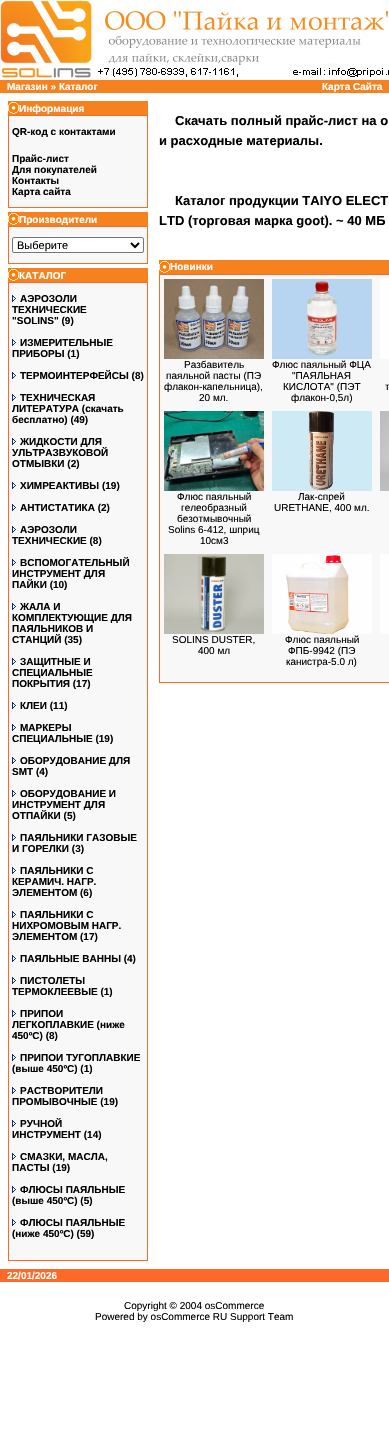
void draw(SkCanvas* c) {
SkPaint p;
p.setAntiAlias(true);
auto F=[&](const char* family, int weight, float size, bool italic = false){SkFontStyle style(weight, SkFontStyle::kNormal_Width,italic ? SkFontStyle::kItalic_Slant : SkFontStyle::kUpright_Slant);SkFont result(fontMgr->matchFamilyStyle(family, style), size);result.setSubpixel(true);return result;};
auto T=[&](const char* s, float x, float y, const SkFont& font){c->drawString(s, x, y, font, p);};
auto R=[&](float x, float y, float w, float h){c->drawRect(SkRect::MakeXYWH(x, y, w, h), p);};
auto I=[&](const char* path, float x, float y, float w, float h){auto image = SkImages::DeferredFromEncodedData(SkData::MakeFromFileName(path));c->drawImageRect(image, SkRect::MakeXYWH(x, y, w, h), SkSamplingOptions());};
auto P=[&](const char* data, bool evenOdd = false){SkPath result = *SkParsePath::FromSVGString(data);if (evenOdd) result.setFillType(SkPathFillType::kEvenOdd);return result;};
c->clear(0xffffffff);
I("1.png",0,0,389,78);
p.setColor(0xfff5821e);
R(0,80,389,13);
auto f1 = F("Liberation Sans",700,10);
p.setColor(0xffffffff);
T("Магазин » Каталог",7,90,f1);
T("Карта Сайта",322,90,f1);
I("2.png",8,101,11,14);
p.setColor(0xfff5821e);
R(19,101,129,14);
p.setColor(0xffffffff);
T("Информация",19,112,f1);
p.setColor(0xffff6928);
R(8,115,140,93);
p.setColor(0xfff8f8f9);
R(9,116,138,91);
p.setColor(0xff000000);
T("QR-код с контактами",12,135,f1);
T("Прайс-лист",12,162,f1);
T("Для покупателей",12,173,f1);
T("Контакты",12,184,f1);
T("Карта сайта",12,195,f1);
I("2.png",8,212,11,14);
p.setColor(0xfff5821e);
R(19,212,129,14);
p.setColor(0xffffffff);
T("Производители",19,223,f1);
p.setColor(0xffff6928);
R(8,226,140,38);
p.setColor(0xfff8f8f9);
R(9,227,138,36);
p.setColor(0xffffffff);
c->drawRoundRect(SkRect::MakeXYWH(12.5,237.5,131,15),1.5,1.5,p);
p.setStroke(true);
p.setStrokeWidth(1);
p.setColor(0xff767676);
c->drawRoundRect(SkRect::MakeXYWH(12.5,237.5,131,15),1.5,1.5,p);
p.setStrokeWidth(2);
p.setColor(0xff000000);
c->drawPath(P("M131 243l4 4l4-4"),p);
auto f2 = F("Liberation Sans",400,11);
p.setStroke(false);
T("Выберите",17,249,f2);
I("2.png",8,268,11,14);
p.setColor(0xfff5821e);
R(19,268,129,14);
p.setColor(0xffffffff);
T("КАТАЛОГ",19,279,f1);
p.setColor(0xffff6928);
R(8,282,140,979);
p.setColor(0xfff8f8f9);
R(9,283,138,977);
I("3.png",12,295,4,7);
p.setColor(0xff000000);
T("АЭРОЗОЛИ",20,302,f1);
T("ТЕХНИЧЕСКИЕ",12,313,f1);
T("\"SOLINS\" (9)",12,324,f1);
I("3.png",12,339,4,7);
T("ИЗМЕРИТЕЛЬНЫЕ",20,346,f1);
T("ПРИБОРЫ (1)",12,357,f1);
I("3.png",12,372,4,7);
T("ТЕРМОИНТЕРФЕЙСЫ (8)",20,379,f1);
I("3.png",12,394,4,7);
T("ТЕХНИЧЕСКАЯ",20,401,f1);
T("ЛИТЕРАТУРА (скачать",12,412,f1);
T("бесплатно) (49)",12,423,f1);
I("3.png",12,438,4,7);
T("ЖИДКОСТИ ДЛЯ",20,445,f1);
T("УЛЬТРАЗВУКОВОЙ",12,456,f1);
T("ОТМЫВКИ (2)",12,467,f1);
I("3.png",12,482,4,7);
T("ХИМРЕАКТИВЫ (19)",20,489,f1);
I("3.png",12,504,4,7);
T("АНТИСТАТИКА (2)",20,511,f1);
I("3.png",12,526,4,7);
T("АЭРОЗОЛИ",20,533,f1);
T("ТЕХНИЧЕСКИЕ (8)",12,544,f1);
I("3.png",12,559,4,7);
T("ВСПОМОГАТЕЛЬНЫЙ",20,566,f1);
T("ИНСТРУМЕНТ ДЛЯ",12,577,f1);
T("ПАЙКИ (10)",12,588,f1);
I("3.png",12,603,4,7);
T("ЖАЛА И",20,610,f1);
T("КОМПЛЕКТУЮЩИЕ ДЛЯ",12,621,f1);
T("ПАЯЛЬНИКОВ И",12,632,f1);
T("СТАНЦИЙ (35)",12,643,f1);
I("3.png",12,658,4,7);
T("ЗАЩИТНЫЕ И",20,665,f1);
T("СПЕЦИАЛЬНЫЕ",12,676,f1);
T("ПОКРЫТИЯ (17)",12,687,f1);
I("3.png",12,702,4,7);
T("КЛЕИ (11)",20,709,f1);
I("3.png",12,724,4,7);
T("МАРКЕРЫ",20,731,f1);
T("СПЕЦИАЛЬНЫЕ (19)",12,742,f1);
I("3.png",12,757,4,7);
T("ОБОРУДОВАНИЕ ДЛЯ",20,764,f1);
T("SMT (4)",12,775,f1);
I("3.png",12,790,4,7);
T("ОБОРУДОВАНИЕ И",20,797,f1);
T("ИНСТРУМЕНТ ДЛЯ",12,808,f1);
T("ОТПАЙКИ (5)",12,819,f1);
I("3.png",12,834,4,7);
T("ПАЯЛЬНИКИ ГАЗОВЫЕ",20,841,f1);
T("И ГОРЕЛКИ (3)",12,852,f1);
I("3.png",12,867,4,7);
T("ПАЯЛЬНИКИ С",20,874,f1);
T("КЕРАМИЧ. НАГР.",12,885,f1);
T("ЭЛЕМЕНТОМ (6)",12,896,f1);
I("3.png",12,911,4,7);
T("ПАЯЛЬНИКИ С",20,918,f1);
T("НИХРОМОВЫМ НАГР.",12,929,f1);
T("ЭЛЕМЕНТОМ (17)",12,940,f1);
I("3.png",12,955,4,7);
T("ПАЯЛЬНЫЕ ВАННЫ (4)",20,962,f1);
I("3.png",12,977,4,7);
T("ПИСТОЛЕТЫ",20,984,f1);
T("ТЕРМОКЛЕЕВЫЕ (1)",12,995,f1);
I("3.png",12,1010,4,7);
T("ПРИПОИ",20,1017,f1);
T("ЛЕГКОПЛАВКИЕ (ниже",12,1028,f1);
T("450ºС) (8)",12,1039,f1);
I("3.png",12,1054,4,7);
T("ПРИПОИ ТУГОПЛАВКИЕ",20,1061,f1);
T("(выше 450ºС) (1)",12,1072,f1);
I("3.png",12,1087,4,7);
T("РАСТВОРИТЕЛИ",20,1094,f1);
T("ПРОМЫВОЧНЫЕ (19)",12,1105,f1);
I("3.png",12,1120,4,7);
T("РУЧНОЙ",20,1127,f1);
T("ИНСТРУМЕНТ (14)",12,1138,f1);
I("3.png",12,1153,4,7);
T("СМАЗКИ, МАСЛА,",20,1160,f1);
T("ПАСТЫ (19)",12,1171,f1);
I("3.png",12,1186,4,7);
T("ФЛЮСЫ ПАЯЛЬНЫЕ",20,1193,f1);
T("(выше 450ºC) (5)",12,1204,f1);
I("3.png",12,1219,4,7);
T("ФЛЮСЫ ПАЯЛЬНЫЕ",20,1226,f1);
T("(ниже 450ºC) (59)",12,1237,f1);
auto f3 = F("Liberation Sans",700,13);
T("Скачать полный прайс-лист на о",175,125,f3);
T("и расходные материалы.",159,145,f3);
T("Каталог продукции TAIYO ELECT",175,205,f3);
T("LTD (торговая марка goot). ~ 40 МБ",159,225,f3);
I("2.png",159,260,11,14);
p.setColor(0xfff5821e);
R(170,260,219,14);
p.setColor(0xffffffff);
T("Новинки",170,270,f1);
p.setColor(0xffff6928);
R(159,274,230,409);
p.setColor(0xfff8f8f9);
R(160,275,229,407);
I("4.png",164,279,100,80);
auto f4 = F("Liberation Sans",400,10);
p.setColor(0xff000000);
T("Разбавитель",184,368,f4);
T("паяльной пасты (ПЭ",166,379,f4);
T("флакон-капельница),",164,390,f4);
T("20 мл.",199,401,f4);
I("5.png",272,279,100,80);
T("Флюс паяльный ФЦА",272,368,f4);
T("\"ПАЯЛЬНАЯ",292,379,f4);
T("КИСЛОТА\" (ПЭТ",283,390,f4);
T("флакон-0,5л)",291,401,f4);
p.setColor(0xfffefefe);
R(380,279,9,80);
p.setColor(0xff000000);
T("т",385,390,f4);
I("6.png",380,411,9,80);
I("7.png",164,411,100,80);
T("Флюс паяльный",177,500,f4);
T("гелеобразный",181,511,f4);
T("безотмывочный",177,522,f4);
T("Solins 6-412, шприц",168,533,f4);
T("10см3",200,544,f4);
I("8.png",272,411,100,80);
T("Лак-спрей",298,500,f4);
T("URETHANE, 400 мл.",274,511,f4);
p.setColor(0xfffefefe);
R(380,554,9,80);
I("9.png",164,554,100,80);
p.setColor(0xff000000);
T("SOLINS DUSTER,",172,643,f4);
T("400 мл",198,654,f4);
I("10.png",272,554,100,80);
T("Флюс паяльный",285,643,f4);
T("ФПБ-9942 (ПЭ",288,654,f4);
T("канистра-5.0 л)",286,665,f4);
p.setColor(0xffff6928);
R(0,1269,389,13);
p.setColor(0xffffffff);
T("22/01/2026",7,1279,f1);
p.setColor(0xff000000);
T("Copyright © 2004 osCommerce",124,1309,f4);
T("Powered by osCommerce RU Support Team",95,1320,f4);
}
